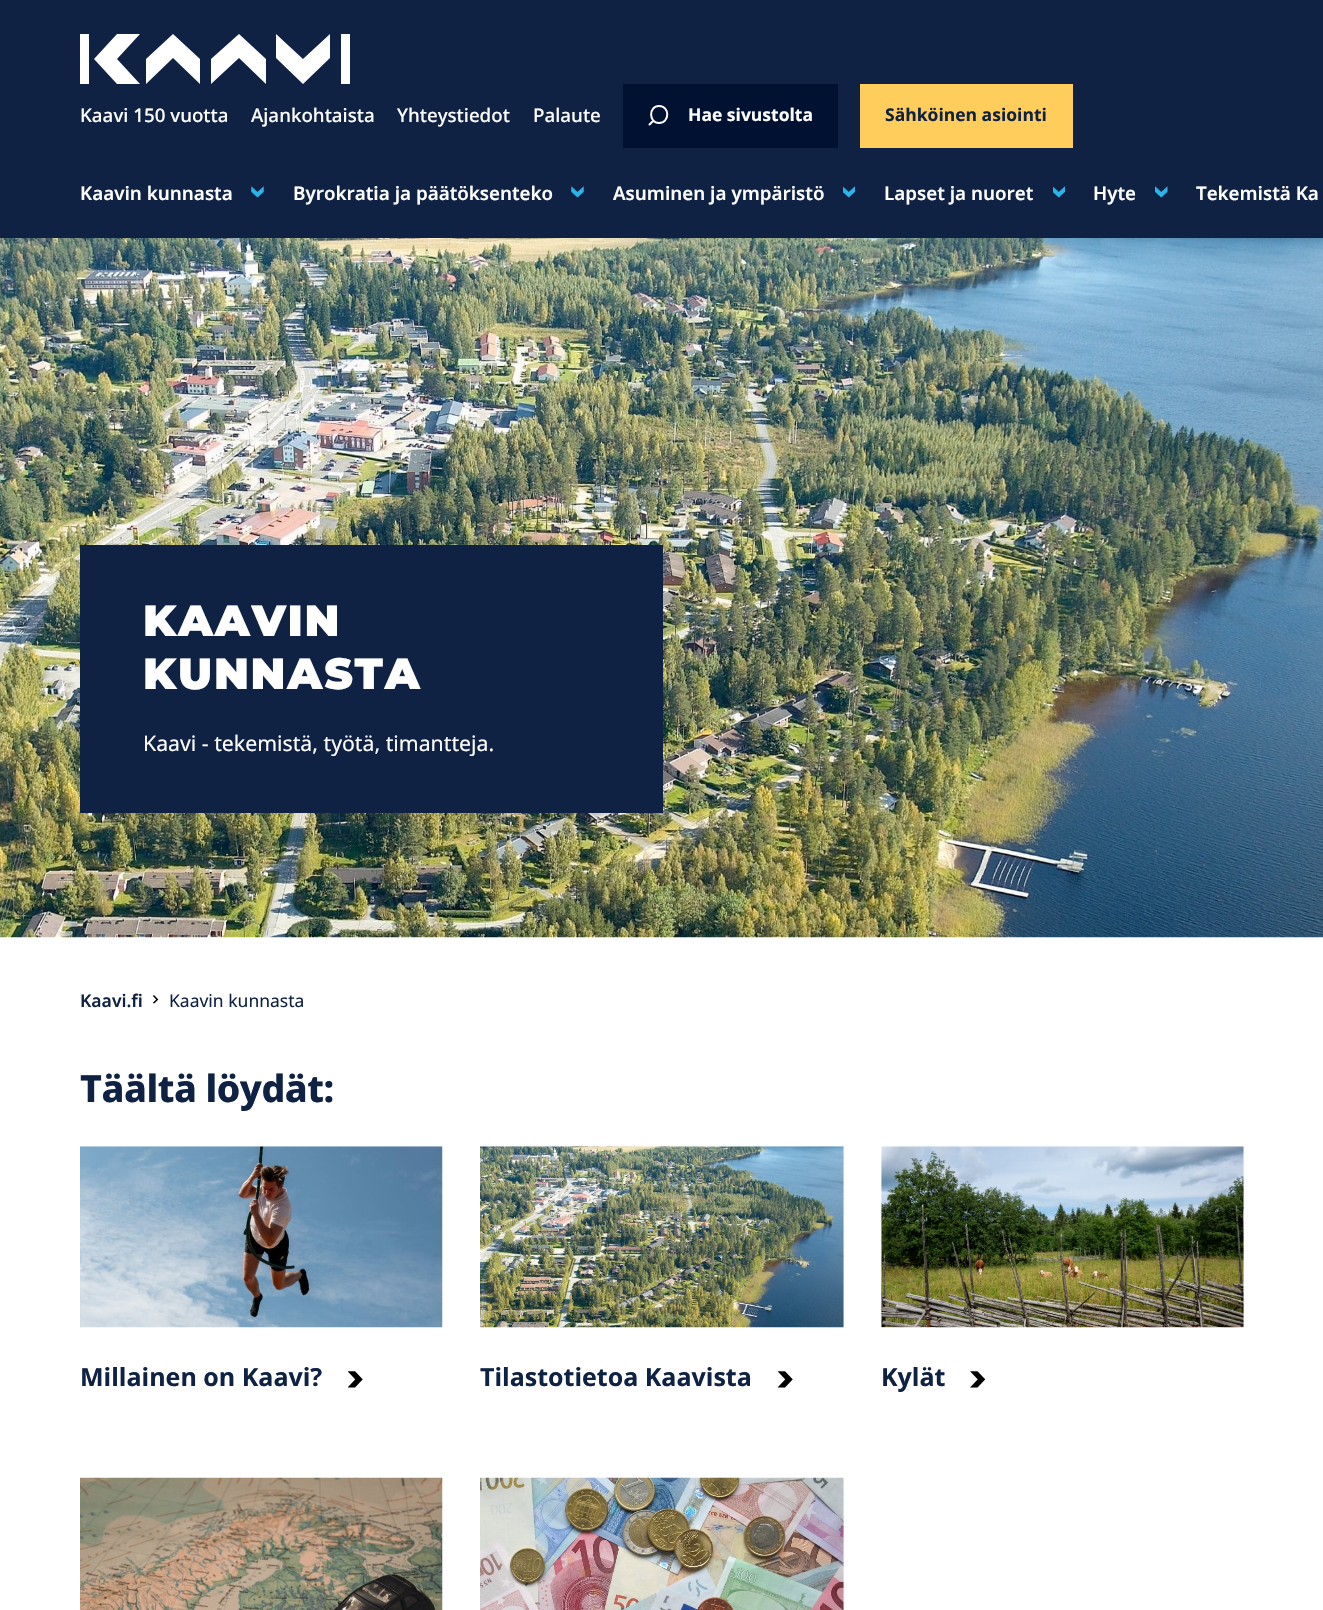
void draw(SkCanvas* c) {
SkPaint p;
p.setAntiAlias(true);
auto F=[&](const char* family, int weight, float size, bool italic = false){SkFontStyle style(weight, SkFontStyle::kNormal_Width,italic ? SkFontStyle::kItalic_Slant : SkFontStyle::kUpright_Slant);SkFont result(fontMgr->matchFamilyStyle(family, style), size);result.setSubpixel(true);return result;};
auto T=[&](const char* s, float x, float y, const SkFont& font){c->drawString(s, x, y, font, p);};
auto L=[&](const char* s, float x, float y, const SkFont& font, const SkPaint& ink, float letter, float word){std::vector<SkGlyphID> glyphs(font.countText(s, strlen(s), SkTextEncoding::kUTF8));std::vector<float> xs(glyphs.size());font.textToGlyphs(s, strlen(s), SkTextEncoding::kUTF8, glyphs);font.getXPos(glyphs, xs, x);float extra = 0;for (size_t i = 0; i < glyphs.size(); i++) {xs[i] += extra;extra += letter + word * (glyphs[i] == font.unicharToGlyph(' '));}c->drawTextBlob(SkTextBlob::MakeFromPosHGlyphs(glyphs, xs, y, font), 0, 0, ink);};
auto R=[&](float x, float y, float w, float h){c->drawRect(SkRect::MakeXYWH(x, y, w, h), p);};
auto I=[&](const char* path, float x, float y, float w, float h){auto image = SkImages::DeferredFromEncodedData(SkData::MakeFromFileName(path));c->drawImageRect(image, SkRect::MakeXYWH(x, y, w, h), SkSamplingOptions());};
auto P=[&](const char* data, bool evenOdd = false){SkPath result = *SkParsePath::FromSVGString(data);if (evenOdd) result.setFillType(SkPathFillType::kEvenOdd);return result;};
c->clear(0xffffffff);
p.setColor(0xff0f2244);
R(0,0,1323,238);
p.setColor(0xffffffff);
c->drawPath(P("M80 84h9v-50h-9zm37-50l-23 25l23 25h23l-23-25l23-25zm224 50h9v-50h-9zm-168-50l-27 25v25l27-26l27 26v-25zm66 0l-28 25v25l28-26l27 26v-25zm91 0l-27 25l-27-25v24l27 26l27-26z"),p);
auto f1 = F("Noto Sans",500,18.75);
T("Kaavi 150 vuotta",80,122,f1);
T("Ajankohtaista",251,122,f1);
T("Yhteystiedot",397,122,f1);
T("Palaute",533,122,f1);
p.setColor(0xff001131);
R(623,84,215,64);
p.setStroke(true);
p.setStrokeWidth(2);
p.setStrokeCap(SkPaint::kRound_Cap);
p.setStrokeJoin(SkPaint::kRound_Join);
p.setColor(0xffffffff);
c->drawPath(P("M659 123c-10.5 0-10.5-17 0-17c11 0 11 17 0 17zm-9.5 1.5l3.5-3.5"),p);
auto f2 = F("Noto Sans",700,17.5);
p.setStroke(false);
T("Hae sivustolta",688,121,f2);
p.setColor(0xffffcd5b);
R(860,84,213,64);
p.setColor(0xff0f2244);
T("Sähköinen asiointi",885,121,f2);
auto f3 = F("Noto Sans",600,18.75);
p.setColor(0xffffffff);
T("Kaavin kunnasta",80,200,f3);
I("1.png",251,186,13,12);
T("Byrokratia ja päätöksenteko",293,200,f3);
I("1.png",571,186,13,12);
T("Asuminen ja ympäristö",613,200,f3);
I("2.png",843,186,12,12);
T("Lapset ja nuoret",884,200,f3);
I("2.png",1053,186,12,12);
T("Hyte",1093,200,f3);
I("3.png",1155,186,13,12);
T("Tekemistä Ka",1196,200,f3);
I("4.png",0,238,1323,700);
p.setColor(0xff0f2244);
R(80,545,583,268);
auto f4 = F("Montserrat",900,43.5);
p.setColor(0xffffffff);
L("KAAVIN",143,636,f4,p,1.75,0);
L("KUNNASTA",143,689,f4,p,1.75,0);
auto f5 = F("Noto Sans",400,21.25);
T("Kaavi - tekemistä, työtä, timantteja.",143,751,f5);
auto f6 = F("Noto Sans",600,17.5);
p.setColor(0xff0f2244);
T("Kaavi.fi",80,1007,f6);
I("5.png",153,995,6,9);
auto f7 = F("Noto Sans",400,17.5);
T("Kaavin kunnasta",169,1007,f7);
auto f8 = F("Noto Sans",800,37.5);
L("Täältä löydät:",80,1102,f8,p,-.5,0);
I("6.png",80,1146,363,182);
auto f9 = F("Noto Sans",700,25);
T("Millainen on Kaavi?",80,1386,f9);
I("7.png",348,1371,15,17);
I("8.png",480,1146,364,182);
T("Tilastotietoa Kaavista",480,1386,f9);
I("7.png",778,1371,15,17);
I("9.png",881,1146,363,182);
T("Kylät",881,1386,f9);
I("10.png",970,1371,15,17);
I("11.png",80,1477,363,133);
I("12.png",480,1477,364,133);
}
